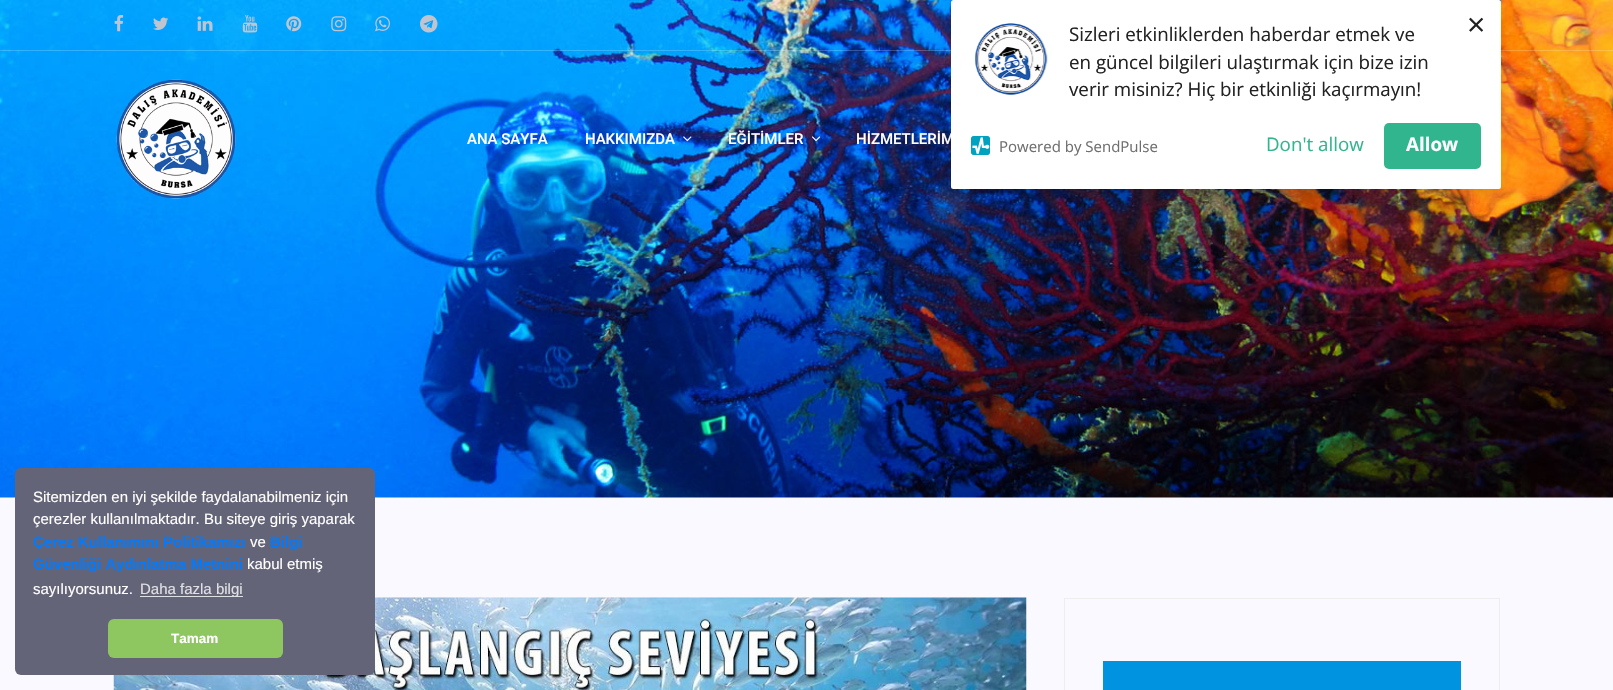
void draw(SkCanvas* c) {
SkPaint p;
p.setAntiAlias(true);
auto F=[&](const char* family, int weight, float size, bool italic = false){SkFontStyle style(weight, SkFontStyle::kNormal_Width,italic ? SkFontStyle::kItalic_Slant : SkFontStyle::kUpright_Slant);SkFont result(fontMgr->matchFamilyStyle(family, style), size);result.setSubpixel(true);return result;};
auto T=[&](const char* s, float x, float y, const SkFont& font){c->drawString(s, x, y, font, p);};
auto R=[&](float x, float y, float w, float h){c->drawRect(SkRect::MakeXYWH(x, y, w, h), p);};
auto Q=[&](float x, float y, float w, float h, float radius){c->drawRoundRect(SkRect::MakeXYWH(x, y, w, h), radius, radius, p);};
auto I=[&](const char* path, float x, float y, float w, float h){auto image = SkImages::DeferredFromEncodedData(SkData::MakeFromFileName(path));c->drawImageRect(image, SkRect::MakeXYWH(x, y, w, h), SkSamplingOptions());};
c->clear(0xffffffff);
I("1.png",0,0,1613,498);
p.setColor(0x33ffffff);
R(0,50,1613,1);
p.setColor(0xff0093df);
R(1498,0,3,3);
I("2.png",114,15,10,17);
I("3.png",153,17,16,13);
I("4.png",197,16,16,15);
I("5.png",242,15,16,18);
I("6.png",286,16,16,16);
I("7.png",331,16,16,16);
I("8.png",375,16,15,16);
I("9.png",420,15,18,18);
I("10.png",116,79,120,120);
auto f1 = F("Roboto",500,15);
p.setColor(0xffffffff);
T("ANA SAYFA",467,144,f1);
T("HAKKIMIZDA",585,144,f1);
I("11.png",683,136,9,6);
T("EĞİTİMLER",728,144,f1);
I("12.png",812,136,9,6);
T("HİZMETLERİM",856,144,f1);
p.setColor(0x1a000000);
p.setMaskFilter(SkMaskFilter::MakeBlur(kNormal_SkBlurStyle, 6));
c->drawRoundRect(SkRect::MakeXYWH(951,5,550,189),2.5,2.5,p);
p.setMaskFilter(nullptr);
p.setColor(0xffffffff);
Q(951,0,550,189,2.5);
auto f2 = F("Open Sans",400,32);
p.setColor(0xff222222);
T("×",1467,36,f2);
I("13.png",974,23,74,72);
auto f3 = F("Open Sans",400,18.75);
T("Sizleri etkinliklerden haberdar etmek ve",1069,41,f3);
T("en güncel bilgileri ulaştırmak için bize izin",1069,69,f3);
T("verir misiniz? Hiç bir etkinliği kaçırmayın!",1069,96,f3);
I("14.png",971,136,19,19);
auto f4 = F("Open Sans",400,15);
p.setColor(0xff6f6f6f);
T("Powered by SendPulse",999,152,f4);
p.setColor(0xff31b58e);
T("Don't allow",1266,151,f3);
Q(1384,123,97,46,5);
auto f5 = F("Open Sans",700,18.75);
p.setColor(0xffffffff);
T("Allow",1406,151,f5);
p.setColor(0xfff9f9ff);
R(0,498,1613,192);
I("15.png",113,597,914,93);
p.setColor(0xff646478);
Q(15,468,360,207,6);
auto f6 = F("Liberation Sans",400,15);
p.setColor(0xffffffff);
T("Sitemizden en iyi şekilde faydalanabilmeniz için",33,502,f6);
T("çerezler kullanılmaktadır. Bu siteye giriş yaparak",33,524,f6);
auto f7 = F("Liberation Sans",700,15);
p.setColor(0xff007bff);
T("Çerez Kullanımını Politikamızı",33,547,f7);
p.setColor(0xffffffff);
T("ve",250,547,f6);
p.setColor(0xff007bff);
T("Bilgi",270,547,f7);
T("Güvenliği Aydınlatma Metnini",33,569,f7);
p.setColor(0xffffffff);
T("kabul etmiş",247,569,f6);
T("sayılıyorsunuz.",33,594,f6);
p.setColor(0xffe0e0e4);
R(140,596,103,1);
T("Daha fazla bilgi",140,594,f6);
p.setColor(0xff8ec760);
Q(108,619,175,39,6);
auto f8 = F("Liberation Sans",700,13.5);
p.setColor(0xffffffff);
T("Tamam",171,643,f8);
p.setStroke(true);
p.setStrokeWidth(1);
p.setColor(0xffeeeeee);
c->drawRect(SkRect::MakeXYWH(1064.5,598.5,435,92),p);
p.setStroke(false);
p.setColor(0xff0093df);
R(1103,661,358,29);
}
